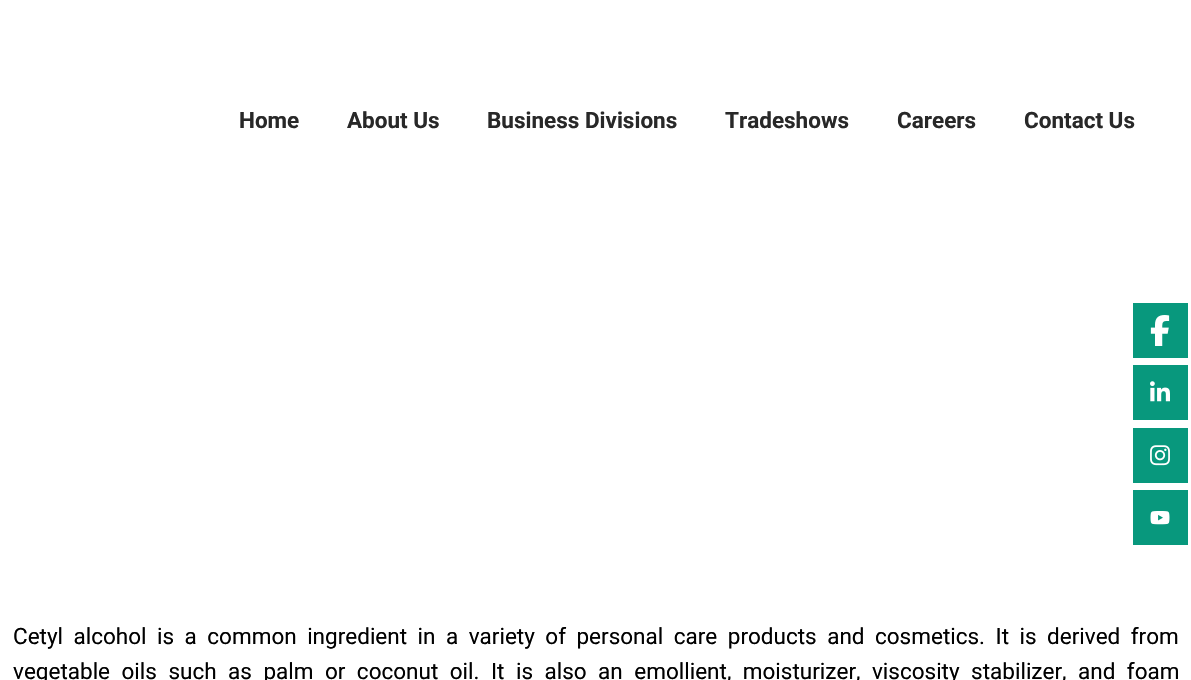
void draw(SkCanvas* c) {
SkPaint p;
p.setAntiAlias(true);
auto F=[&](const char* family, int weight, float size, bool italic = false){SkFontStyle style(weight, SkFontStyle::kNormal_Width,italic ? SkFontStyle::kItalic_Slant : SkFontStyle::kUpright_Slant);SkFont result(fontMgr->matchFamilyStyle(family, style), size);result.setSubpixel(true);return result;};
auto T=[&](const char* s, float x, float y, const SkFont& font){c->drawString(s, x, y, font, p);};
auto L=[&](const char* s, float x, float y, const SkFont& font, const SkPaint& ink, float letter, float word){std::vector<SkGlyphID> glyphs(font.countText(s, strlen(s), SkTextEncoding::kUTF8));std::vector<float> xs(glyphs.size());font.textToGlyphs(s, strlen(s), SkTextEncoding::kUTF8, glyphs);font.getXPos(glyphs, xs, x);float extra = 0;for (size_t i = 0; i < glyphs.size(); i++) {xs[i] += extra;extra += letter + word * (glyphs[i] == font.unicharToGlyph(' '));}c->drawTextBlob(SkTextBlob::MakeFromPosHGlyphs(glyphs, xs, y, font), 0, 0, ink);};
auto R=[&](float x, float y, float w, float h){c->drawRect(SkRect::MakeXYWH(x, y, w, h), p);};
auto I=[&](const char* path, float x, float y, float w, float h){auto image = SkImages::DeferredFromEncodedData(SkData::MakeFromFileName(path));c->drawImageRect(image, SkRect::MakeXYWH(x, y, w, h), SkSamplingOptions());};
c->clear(0xffffffff);
auto f1 = F("Roboto",700,22.5);
p.setColor(0xff282828);
T("Home",239,128,f1);
T("About Us",347,128,f1);
T("Business Divisions",487,128,f1);
T("Tradeshows",725,128,f1);
T("Careers",897,128,f1);
T("Contact Us",1024,128,f1);
p.setColor(0xff08987d);
R(1133,303,55,55);
I("1.png",1150,315,20,31);
R(1133,365,55,55);
I("2.png",1150,381,20,21);
R(1133,428,55,55);
I("3.png",1150,445,20,21);
R(1133,490,55,55);
I("4.png",1150,511,20,14);
auto f2 = F("Roboto",400,22.5);
p.setColor(0xff000000);
L("Cetyl alcohol is a common ingredient in a variety of personal care products and cosmetics. It is derived from",13,644,f2,p,0,4.9);
L("vegetable oils such as palm or coconut oil. It is also an emollient, moisturizer, viscosity stabilizer, and foam",13,679,f2,p,0,5.9);
}
